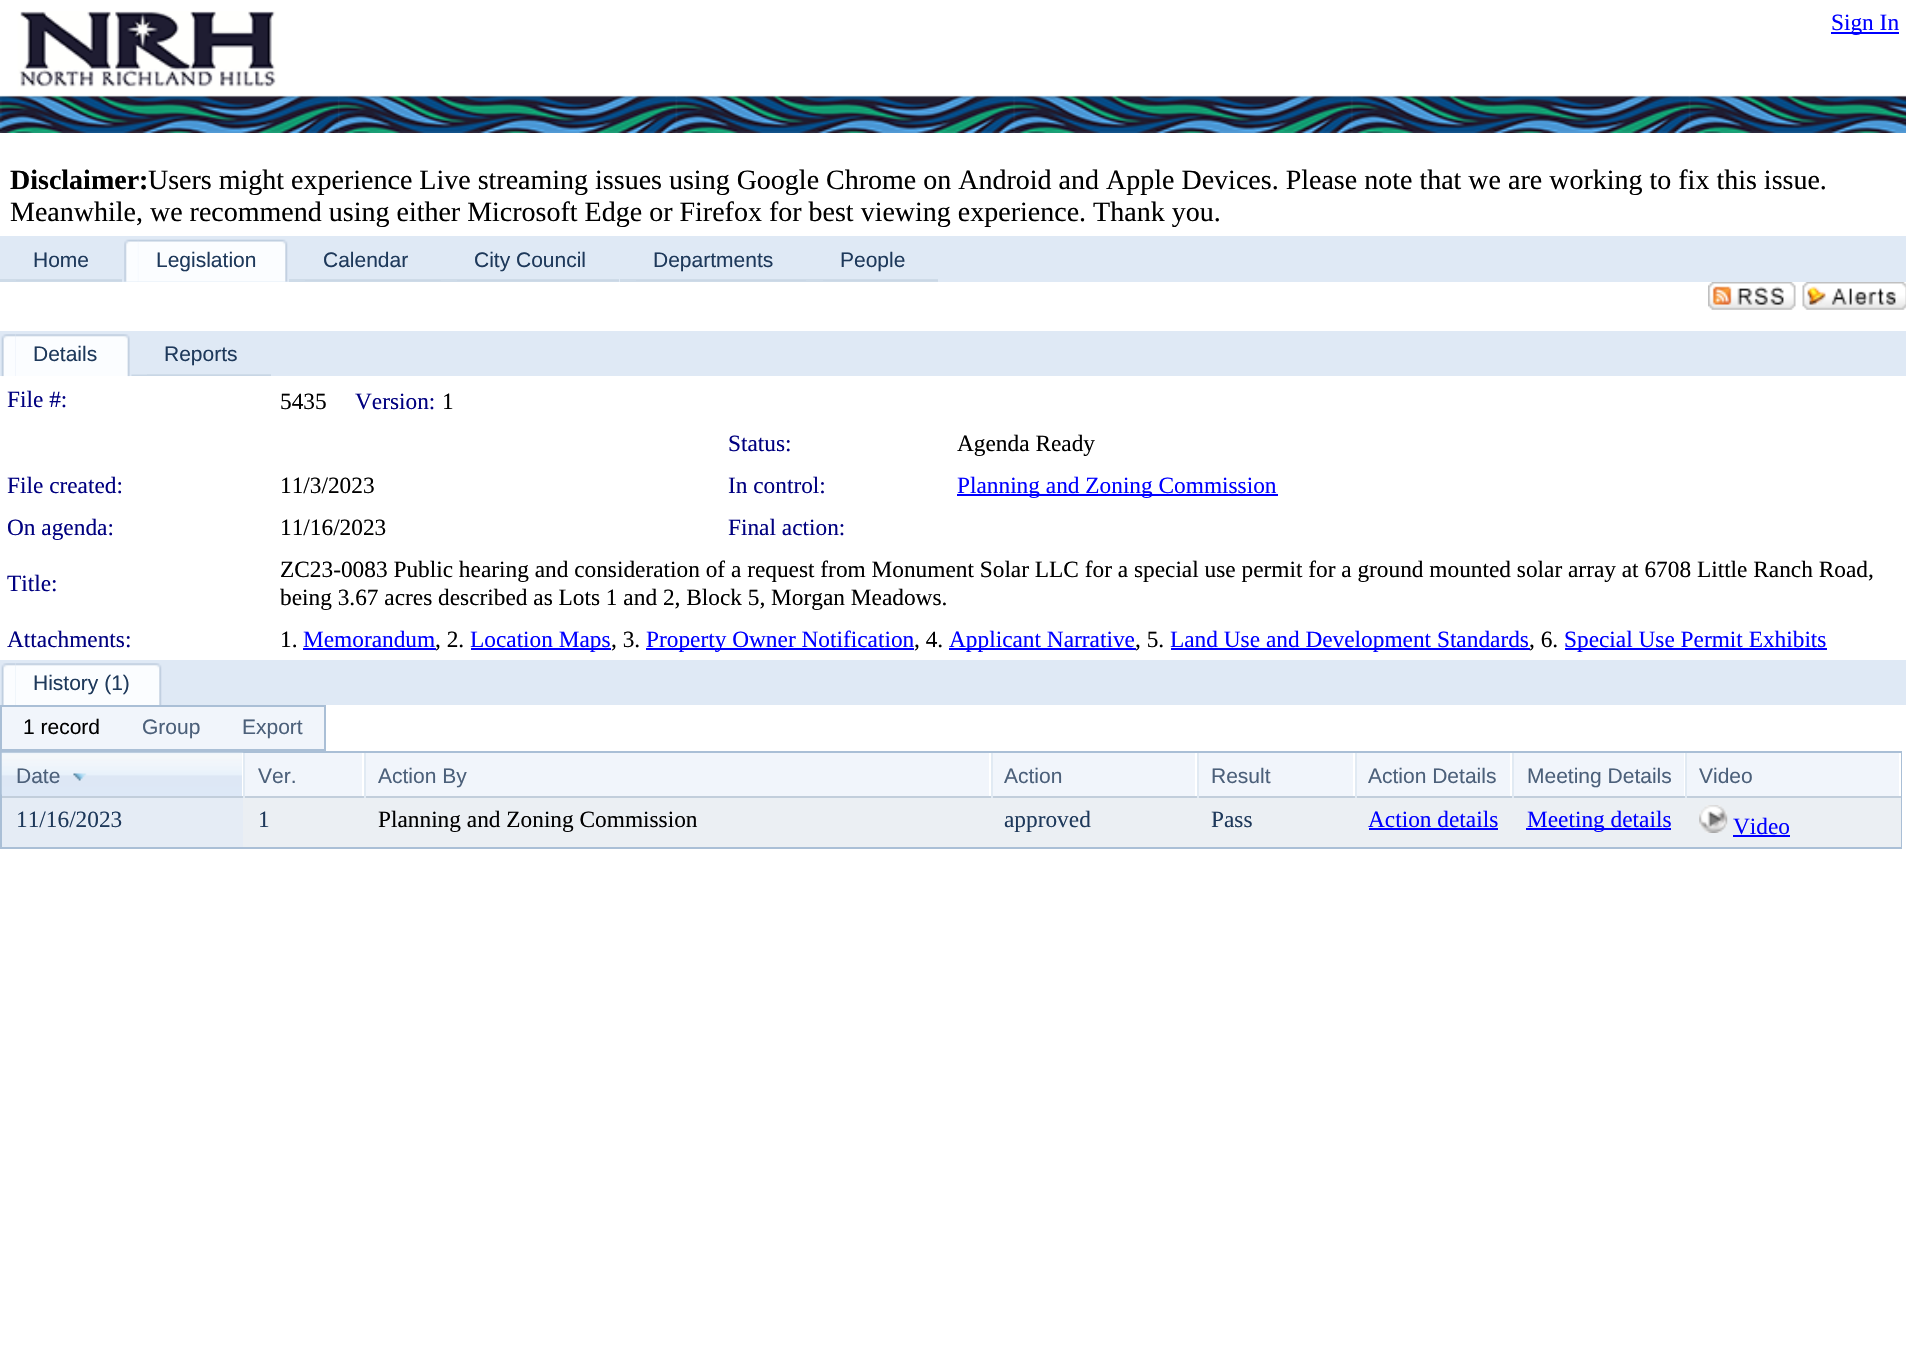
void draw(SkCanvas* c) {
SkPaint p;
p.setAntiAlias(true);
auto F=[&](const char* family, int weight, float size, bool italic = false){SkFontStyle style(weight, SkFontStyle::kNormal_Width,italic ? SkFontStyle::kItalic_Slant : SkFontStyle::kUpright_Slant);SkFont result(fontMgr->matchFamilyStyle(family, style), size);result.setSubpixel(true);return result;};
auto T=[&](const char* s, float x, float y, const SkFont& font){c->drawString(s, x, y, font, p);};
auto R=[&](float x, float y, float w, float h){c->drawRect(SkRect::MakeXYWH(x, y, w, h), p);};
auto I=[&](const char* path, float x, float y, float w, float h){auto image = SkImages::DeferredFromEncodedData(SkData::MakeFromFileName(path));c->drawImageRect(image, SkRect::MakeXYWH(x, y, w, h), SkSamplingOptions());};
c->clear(0xffffffff);
p.setColor(0xff0000ff);
R(1831,32,68,2);
auto f1 = F("Liberation Serif",400,23.33);
T("Sign In",1831,30,f1);
I("1.png",337,95,1569,38);
I("2.png",0,11,338,122);
auto f2 = F("Liberation Serif",700,28);
p.setColor(0xff000000);
T("Disclaimer:",10,189,f2);
auto f3 = F("Liberation Serif",400,28);
T("Users might experience Live streaming issues using Google Chrome on Android and Apple Devices. Please note that we are working to fix this issue.",148,189,f3);
T("Meanwhile, we recommend using either Microsoft Edge or Firefox for best viewing experience. Thank you.",10,221,f3);
p.setColor(0xffdfe9f5);
R(0,236,1906,46);
p.setColor(0xffcedbe8);
R(0,279,122,3);
p.setColor(0xffcad7e5);
R(16,280,106,1);
auto f4 = F("Liberation Sans",400,21);
p.setColor(0xff1e395b);
T("Home",33,267,f4);
I("3.png",124,239,15,43);
I("4.png",138,239,150,43);
T("Legislation",156,267,f4);
p.setColor(0xffcedbe8);
R(289,279,330,3);
p.setColor(0xffcad7e5);
R(305,280,136,1);
p.setColor(0xff1e395b);
T("Calendar",323,267,f4);
p.setColor(0xffcad7e5);
R(457,280,162,1);
p.setColor(0xff1e395b);
T("City Council",474,267,f4);
p.setColor(0xffcedbe8);
R(620,279,318,3);
p.setColor(0xffcad7e5);
R(636,280,170,1);
p.setColor(0xff1e395b);
T("Departments",653,267,f4);
p.setColor(0xffcad7e5);
R(823,280,115,1);
p.setColor(0xff1e395b);
T("People",840,267,f4);
I("5.png",1708,282,88,28);
I("6.png",1802,282,104,28);
p.setColor(0xffdfe9f5);
R(0,331,1906,45);
I("7.png",1,334,15,43);
I("8.png",16,334,114,43);
p.setColor(0xff1e395b);
T("Details",33,361,f4);
I("9.png",131,374,140,2);
p.setColor(0xffcfdce9);
R(147,374,124,1);
p.setColor(0xff1e395b);
T("Reports",164,361,f4);
p.setColor(0xff000080);
T("File #:",7,407,f1);
p.setColor(0xff000000);
T("5435",280,409,f1);
p.setColor(0xff000080);
T("Version:",355,409,f1);
p.setColor(0xff000000);
T("1",442,409,f1);
p.setColor(0xff000080);
T("Status:",728,451,f1);
p.setColor(0xff000000);
T("Agenda Ready",957,451,f1);
p.setColor(0xff000080);
T("File created:",7,493,f1);
p.setColor(0xff000000);
T("11/3/2023",280,493,f1);
p.setColor(0xff000080);
T("In control:",728,493,f1);
p.setColor(0xff0000ff);
R(957,494,321,2);
T("Planning and Zoning Commission",957,493,f1);
p.setColor(0xff000080);
T("On agenda:",7,535,f1);
p.setColor(0xff000000);
T("11/16/2023",280,535,f1);
p.setColor(0xff000080);
T("Final action:",728,535,f1);
T("Title:",7,591,f1);
p.setColor(0xff000000);
T("ZC23-0083 Public hearing and consideration of a request from Monument Solar LLC for a special use permit for a ground mounted solar array at 6708 Little Ranch Road,",280,577,f1);
T("being 3.67 acres described as Lots 1 and 2, Block 5, Morgan Meadows.",280,605,f1);
p.setColor(0xff000080);
T("Attachments:",7,647,f1);
p.setColor(0xff000000);
T("1.",280,647,f1);
p.setColor(0xff0000ff);
T("Memorandum",303,647,f1);
p.setColor(0xff000000);
T(", 2.",435,647,f1);
p.setColor(0xff0000ff);
R(303,648,133,2);
R(471,648,140,2);
T("Location Maps",470,647,f1);
p.setColor(0xff000000);
T(", 3.",611,647,f1);
p.setColor(0xff0000ff);
R(646,648,268,2);
T("Property Owner Notification",646,647,f1);
p.setColor(0xff000000);
T(", 4.",914,647,f1);
p.setColor(0xff0000ff);
R(949,648,187,2);
T("Applicant Narrative",949,647,f1);
p.setColor(0xff000000);
T(", 5.",1135,647,f1);
p.setColor(0xff0000ff);
R(1171,648,359,2);
T("Land Use and Development Standards",1170,647,f1);
p.setColor(0xff000000);
T(", 6.",1529,647,f1);
p.setColor(0xff0000ff);
R(1565,648,262,2);
T("Special Use Permit Exhibits",1564,647,f1);
p.setColor(0xffdfe9f5);
R(0,660,1906,45);
I("10.png",1,663,15,42);
I("11.png",16,663,146,42);
p.setColor(0xff1e395b);
T("History (1)",33,690,f4);
p.setColor(0xfff1f5fb);
c->drawRect(SkRect::MakeXYWH(1,706,324,44),p);
p.setStroke(true);
p.setStrokeWidth(2);
p.setColor(0xffaabfd6);
c->drawRect(SkRect::MakeXYWH(1,706,324,44),p);
p.setStroke(false);
p.setColor(0xff000000);
T("1 record",23,734,f4);
p.setColor(0xff4c607a);
T("Group",142,734,f4);
T("Export",242,734,f4);
p.setStroke(true);
p.setColor(0xffaabfd6);
c->drawRect(SkRect::MakeXYWH(1,752,1900,96),p);
p.setStroke(false);
p.setColor(0xffdde8f7);
R(2,794,240,2);
I("12.png",1,752,243,43);
p.setColor(0xffffffff);
R(242,753,1,45);
p.setColor(0xffc2cedb);
R(2,796,1683,2);
p.setColor(0xff4c607a);
T("Date",16,783,f4);
I("13.png",73,773,14,8);
p.setColor(0xfff1f5fb);
R(245,753,117,43);
p.setColor(0xffe1eaf3);
R(243,753,2,45);
p.setColor(0xff4c607a);
T("Ver.",258,783,f4);
p.setColor(0xfff1f5fb);
R(366,753,623,43);
p.setColor(0xffe1eaf3);
R(364,753,2,45);
p.setColor(0xff4c607a);
T("Action By",378,783,f4);
p.setColor(0xfff1f5fb);
R(993,753,202,43);
p.setColor(0xffe1eaf3);
R(991,753,2,45);
p.setColor(0xff4c607a);
T("Action",1004,783,f4);
p.setColor(0xfff1f5fb);
R(1199,753,154,43);
p.setColor(0xffe1eaf3);
R(1197,753,2,45);
p.setColor(0xff4c607a);
T("Result",1211,783,f4);
p.setColor(0xfff1f5fb);
R(1357,753,153,43);
p.setColor(0xffe1eaf3);
R(1355,753,2,45);
p.setColor(0xff4c607a);
T("Action Details",1368,783,f4);
p.setColor(0xfff1f5fb);
R(1514,753,170,43);
p.setColor(0xffe1eaf3);
R(1512,753,2,45);
p.setColor(0xff4c607a);
T("Meeting Details",1527,783,f4);
p.setColor(0xfff1f5fb);
R(1687,753,212,43);
p.setColor(0xffffffff);
R(1900,753,1,45);
p.setColor(0xffc2cedb);
R(1685,796,216,2);
p.setColor(0xffe1eaf3);
R(1685,753,2,45);
p.setColor(0xff4c607a);
T("Video",1699,783,f4);
p.setColor(0xffebeff3);
R(245,798,1656,49);
p.setColor(0xffe5ecf5);
R(2,798,240,47);
R(242,798,1,49);
R(2,845,241,2);
p.setColor(0xff1e395b);
T("11/16/2023",16,827,f1);
p.setColor(0xffebeff3);
R(243,798,2,49);
p.setColor(0xff1e395b);
T("1",258,827,f1);
p.setColor(0xff000000);
T("Planning and Zoning Commission",378,827,f1);
p.setColor(0xff1e395b);
T("approved",1004,827,f1);
T("Pass",1211,827,f1);
p.setColor(0xff0000ff);
T("Action details",1368,827,f1);
R(1369,828,129,2);
R(1526,828,145,2);
T("Meeting details",1527,827,f1);
I("14.png",1699,805,29,28);
T("Video",1733,834,f1);
R(1733,835,57,2);
}
